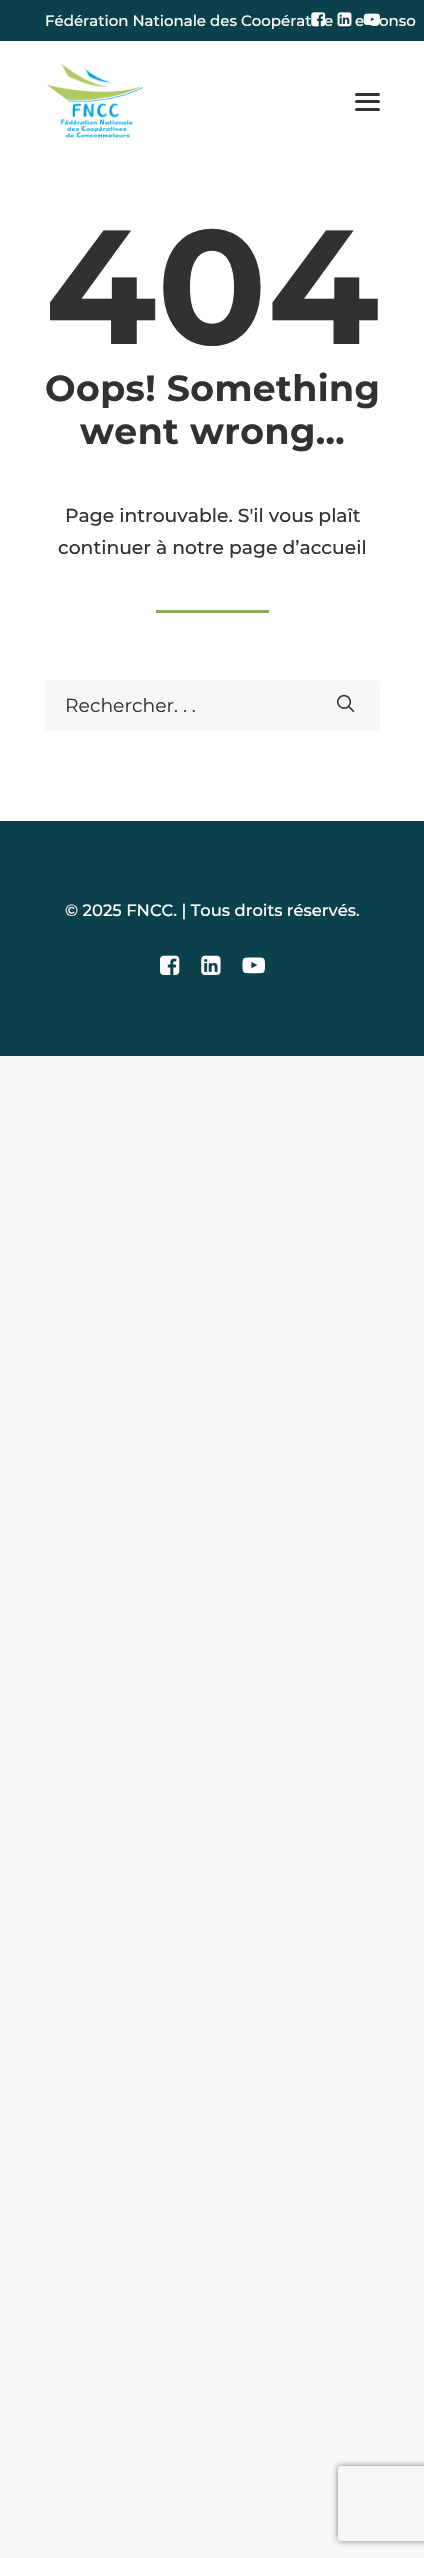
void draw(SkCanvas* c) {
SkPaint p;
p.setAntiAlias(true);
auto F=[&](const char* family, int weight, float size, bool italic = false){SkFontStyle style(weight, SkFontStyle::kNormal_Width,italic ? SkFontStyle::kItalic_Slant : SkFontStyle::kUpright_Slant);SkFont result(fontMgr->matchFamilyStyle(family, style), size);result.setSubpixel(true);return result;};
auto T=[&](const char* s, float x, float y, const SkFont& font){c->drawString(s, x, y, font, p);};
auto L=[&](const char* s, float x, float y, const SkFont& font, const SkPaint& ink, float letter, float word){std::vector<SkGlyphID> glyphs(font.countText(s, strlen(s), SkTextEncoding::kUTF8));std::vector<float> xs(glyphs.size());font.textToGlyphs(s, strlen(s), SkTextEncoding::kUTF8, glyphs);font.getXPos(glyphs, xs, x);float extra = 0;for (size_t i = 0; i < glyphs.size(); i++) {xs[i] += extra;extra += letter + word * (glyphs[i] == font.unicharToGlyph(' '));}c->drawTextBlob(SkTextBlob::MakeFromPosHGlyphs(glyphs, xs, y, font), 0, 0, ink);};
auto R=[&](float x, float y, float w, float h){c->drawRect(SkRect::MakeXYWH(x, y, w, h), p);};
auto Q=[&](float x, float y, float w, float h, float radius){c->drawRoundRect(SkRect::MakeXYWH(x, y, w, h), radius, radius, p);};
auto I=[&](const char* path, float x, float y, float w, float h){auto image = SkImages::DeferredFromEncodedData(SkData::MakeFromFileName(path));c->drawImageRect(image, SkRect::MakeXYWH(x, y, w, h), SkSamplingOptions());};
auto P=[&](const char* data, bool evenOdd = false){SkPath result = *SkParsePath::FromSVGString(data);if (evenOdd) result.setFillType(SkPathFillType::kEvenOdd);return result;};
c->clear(0xfff7f7f7);
p.setColor(0xff0a414c);
R(0,0,424,41);
auto f1 = F("Montserrat",500,15);
p.setColor(0xffffffff);
T("Fédération Nationale des Coopérat",45,26,f1);
T("e",324,26,f1);
I("1.png",311,12,15,15);
I("2.png",337,12,15,15);
T("e Conso",355,26,f1);
I("3.png",363,13,17,12);
R(0,41,424,780);
I("4.png",47,63,96,75);
p.setColor(0xff303133);
Q(355,100,25,3,1.5);
Q(355,93,25,3,1.5);
Q(355,108,25,3,1.5);
auto f2 = F("Montserrat",700,162);
L("404",45,344,f2,p,.5,0);
auto f3 = F("Montserrat",700,36.25);
L("Oops! Something",45,401,f3,p,.4,0);
L("went wrong…",80,444,f3,p,.4,0);
auto f4 = F("Montserrat",500,18.75);
T("Page introuvable. S'il vous plaît",65,522,f4);
T("continuer à notre page d’accueil",58,554,f4);
p.setColor(0xff82b546);
R(156,610,113,3);
p.setColor(0xfff7f7f7);
Q(45,680,335,51,2.5);
auto f5 = F("Montserrat",400,18.75);
p.setColor(0xff303133);
T("Rechercher. . .",65,712,f5);
I("5.png",337,694,18,18);
p.setColor(0xff0a414c);
R(0,821,424,235);
auto f6 = F("Montserrat",500,16.4);
p.setColor(0xffffffff);
T("© 2025 FNCC. | Tous droits réservés.",65,916,f6);
I("6.png",160,955,20,20);
I("7.png",201,955,20,20);
I("8.png",242,957,23,17);
c->save();
c->clipPath(P("M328 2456h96v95h-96zm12.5 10h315c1.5 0 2.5 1 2.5 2.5v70c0 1.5-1 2.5-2.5 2.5h-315c-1.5 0-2.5-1-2.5-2.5v-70c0-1.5 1-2.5 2.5-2.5z",true),true);
p.setColor(0xff808080);
p.setMaskFilter(SkMaskFilter::MakeBlur(kNormal_SkBlurStyle, 3));
c->drawRoundRect(SkRect::MakeXYWH(338,2466,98,75),2.5,2.5,p);
p.setMaskFilter(nullptr);
c->restore();
}
